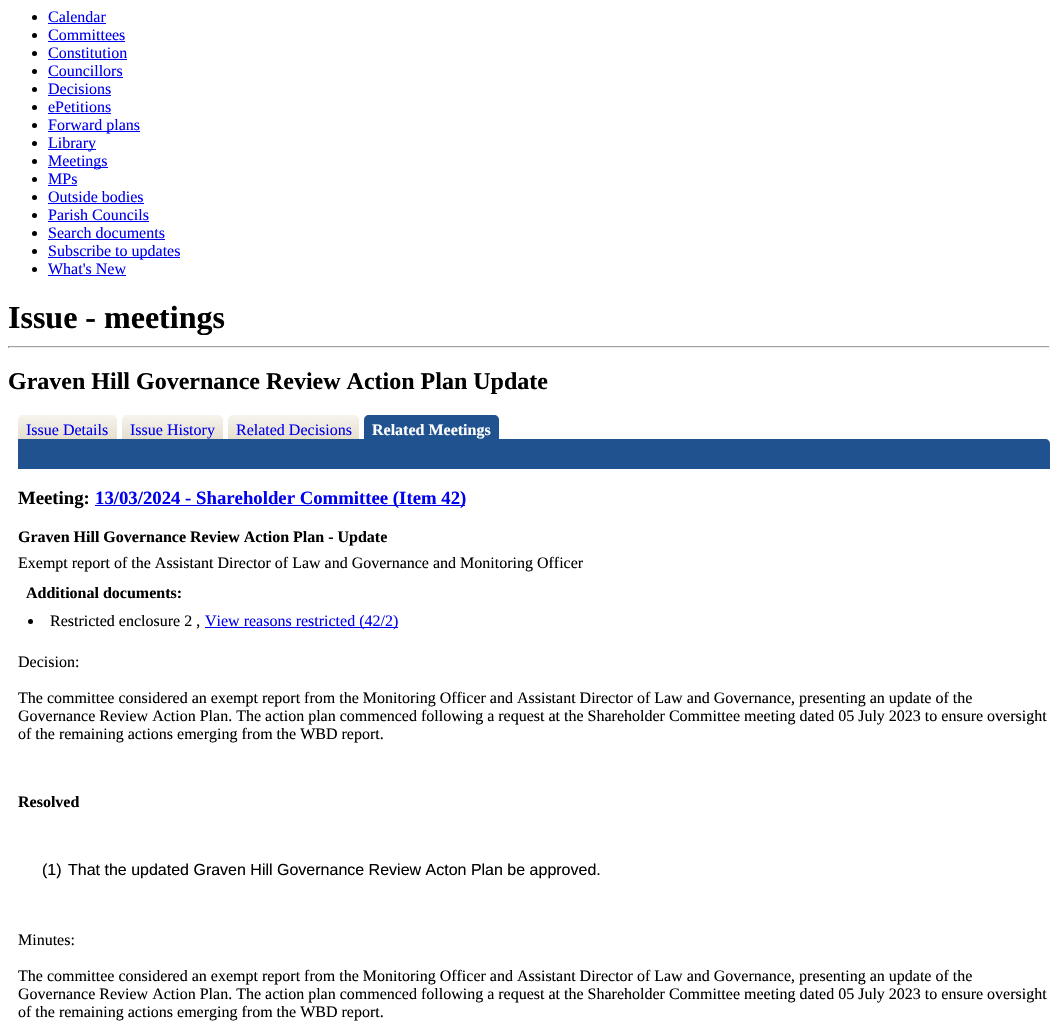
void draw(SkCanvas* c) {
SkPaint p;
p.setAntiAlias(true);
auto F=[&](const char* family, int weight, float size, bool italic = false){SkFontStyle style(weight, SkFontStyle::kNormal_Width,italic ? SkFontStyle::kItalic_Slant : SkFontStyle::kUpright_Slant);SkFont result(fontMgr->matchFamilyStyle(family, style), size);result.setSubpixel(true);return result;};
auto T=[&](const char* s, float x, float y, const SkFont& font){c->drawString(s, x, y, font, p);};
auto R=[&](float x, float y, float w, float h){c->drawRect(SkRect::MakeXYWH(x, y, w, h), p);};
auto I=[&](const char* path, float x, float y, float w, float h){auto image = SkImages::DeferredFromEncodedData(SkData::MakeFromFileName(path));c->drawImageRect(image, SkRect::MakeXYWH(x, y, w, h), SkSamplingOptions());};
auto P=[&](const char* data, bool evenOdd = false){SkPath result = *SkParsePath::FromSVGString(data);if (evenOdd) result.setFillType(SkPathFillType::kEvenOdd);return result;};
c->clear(0xffffffff);
p.setColor(0xff000000);
c->drawCircle(34.5,17.5,2.5,p);
auto f1 = F("Liberation Serif",400,16);
p.setColor(0xff0000ee);
T("Calendar",48,22,f1);
R(48,23,58,1);
p.setColor(0xff000000);
c->drawCircle(34.5,35.5,2.5,p);
p.setColor(0xff0000ee);
T("Committees",48,40,f1);
R(48,41,77,1);
p.setColor(0xff000000);
c->drawCircle(34.5,53.5,2.5,p);
p.setColor(0xff0000ee);
T("Constitution",48,58,f1);
R(48,59,79,1);
p.setColor(0xff000000);
c->drawCircle(34.5,71.5,2.5,p);
p.setColor(0xff0000ee);
T("Councillors",48,76,f1);
R(48,77,75,1);
p.setColor(0xff000000);
c->drawCircle(34.5,89.5,2.5,p);
p.setColor(0xff0000ee);
T("Decisions",48,94,f1);
R(48,95,63,1);
p.setColor(0xff000000);
c->drawCircle(34.5,107.5,2.5,p);
p.setColor(0xff0000ee);
T("ePetitions",48,112,f1);
R(48,113,63,1);
p.setColor(0xff000000);
c->drawCircle(34.5,125.5,2.5,p);
p.setColor(0xff0000ee);
R(48,131,92,1);
T("Forward plans",48,130,f1);
p.setColor(0xff000000);
c->drawCircle(34.5,143.5,2.5,p);
p.setColor(0xff0000ee);
R(48,149,48,1);
T("Library",48,148,f1);
p.setColor(0xff000000);
c->drawCircle(34.5,161.5,2.5,p);
p.setColor(0xff0000ee);
R(48,167,60,1);
T("Meetings",48,166,f1);
p.setColor(0xff000000);
c->drawCircle(34.5,179.5,2.5,p);
p.setColor(0xff0000ee);
T("MPs",48,184,f1);
R(48,185,29,1);
p.setColor(0xff000000);
c->drawCircle(34.5,197.5,2.5,p);
p.setColor(0xff0000ee);
T("Outside bodies",48,202,f1);
R(48,203,96,1);
p.setColor(0xff000000);
c->drawCircle(34.5,215.5,2.5,p);
p.setColor(0xff0000ee);
T("Parish Councils",48,220,f1);
R(48,221,101,1);
p.setColor(0xff000000);
c->drawCircle(34.5,233.5,2.5,p);
p.setColor(0xff0000ee);
T("Search documents",48,238,f1);
R(48,239,117,1);
p.setColor(0xff000000);
c->drawCircle(34.5,251.5,2.5,p);
p.setColor(0xff0000ee);
R(48,257,132,1);
T("Subscribe to updates",48,256,f1);
p.setColor(0xff000000);
c->drawCircle(34.5,269.5,2.5,p);
p.setColor(0xff0000ee);
T("What's New",48,274,f1);
R(48,275,78,1);
auto f2 = F("Liberation Serif",700,32);
p.setColor(0xff000000);
T("Issue - meetings",8,328,f2);
p.setColor(0xff9f9f9f);
R(8,346,1042,1);
p.setColor(0xffeeeeee);
R(1049,346,1,2);
R(8,347,1042,1);
p.setColor(0xff9f9f9f);
R(8,346,1,2);
auto f3 = F("Liberation Serif",700,24);
p.setColor(0xff000000);
T("Graven Hill Governance Review Action Plan Update",8,389,f3);
I("1.png",18,415,99,24);
p.setColor(0xff0000ee);
T("Issue Details",26,435,f1);
I("2.png",122,415,101,24);
T("Issue History",130,435,f1);
I("3.png",228,415,131,24);
T("Related Decisions",236,435,f1);
p.setColor(0xff1f528f);
c->drawPath(P("M369 415h125c3 0 5 2 5 5v19h-135v-19c0-3 2-5 5-5z"),p);
auto f4 = F("Liberation Serif",700,16);
p.setColor(0xffffffff);
T("Related Meetings",372,435,f4);
p.setColor(0xff1f528f);
c->drawPath(P("M18 439h1027c3 0 5 2 5 5v25h-1032z"),p);
auto f5 = F("Liberation Serif",700,18.75);
p.setColor(0xff000000);
T("Meeting:",18,504,f5);
p.setColor(0xff0000ee);
R(95,505,370,1);
T("13/03/2024 - Shareholder Committee (Item 42)",95,504,f5);
p.setColor(0xff000000);
T("Graven Hill Governance Review Action Plan - Update",18,542,f4);
T("Exempt report of the Assistant Director of Law and Governance and Monitoring Officer",18,568,f1);
T("Additional documents:",26,598,f4);
c->drawCircle(30.5,621.5,2.5,p);
T("Restricted enclosure 2 ,",50,626,f1);
p.setColor(0xff0000ee);
R(205,627,193,1);
T("View reasons restricted (42/2)",205,626,f1);
p.setColor(0xff000000);
T("Decision:",18,667,f1);
T("The committee considered an exempt report from the Monitoring Officer and Assistant Director of Law and Governance, presenting an update of the",18,703,f1);
T("Governance Review Action Plan. The action plan commenced following a request at the Shareholder Committee meeting dated 05 July 2023 to ensure oversight",18,721,f1);
T("of the remaining actions emerging from the WBD report.",18,739,f1);
T("Resolved",18,807,f4);
auto f6 = F("Liberation Sans",400,16);
T("(1)",42,875,f6);
T("That the updated Graven Hill Governance Review Acton Plan be approved.",68,875,f6);
T("Minutes:",18,945,f1);
T("The committee considered an exempt report from the Monitoring Officer and Assistant Director of Law and Governance, presenting an update of the",18,981,f1);
T("Governance Review Action Plan. The action plan commenced following a request at the Shareholder Committee meeting dated 05 July 2023 to ensure oversight",18,999,f1);
T("of the remaining actions emerging from the WBD report.",18,1017,f1);
}
